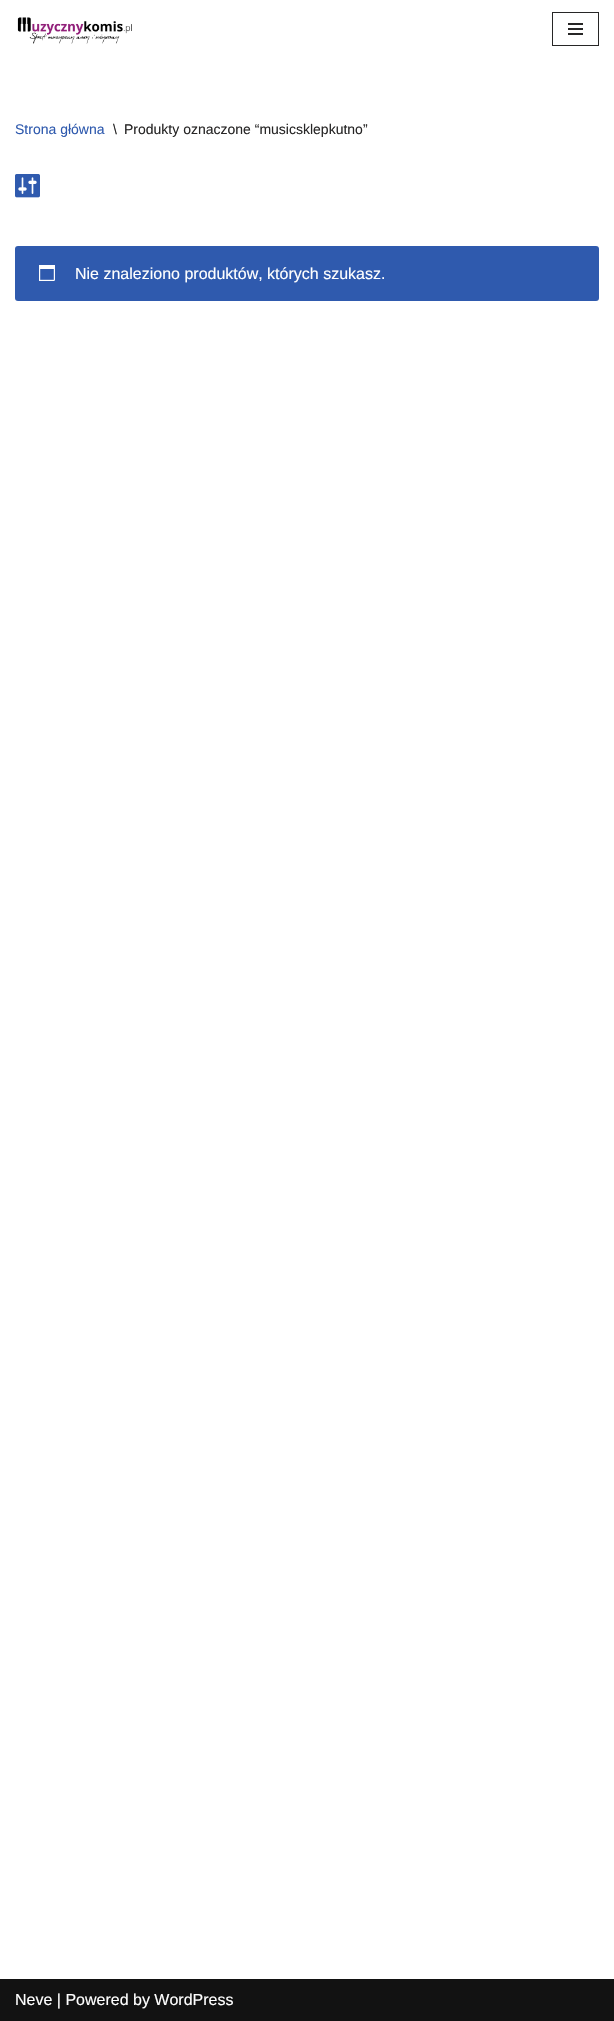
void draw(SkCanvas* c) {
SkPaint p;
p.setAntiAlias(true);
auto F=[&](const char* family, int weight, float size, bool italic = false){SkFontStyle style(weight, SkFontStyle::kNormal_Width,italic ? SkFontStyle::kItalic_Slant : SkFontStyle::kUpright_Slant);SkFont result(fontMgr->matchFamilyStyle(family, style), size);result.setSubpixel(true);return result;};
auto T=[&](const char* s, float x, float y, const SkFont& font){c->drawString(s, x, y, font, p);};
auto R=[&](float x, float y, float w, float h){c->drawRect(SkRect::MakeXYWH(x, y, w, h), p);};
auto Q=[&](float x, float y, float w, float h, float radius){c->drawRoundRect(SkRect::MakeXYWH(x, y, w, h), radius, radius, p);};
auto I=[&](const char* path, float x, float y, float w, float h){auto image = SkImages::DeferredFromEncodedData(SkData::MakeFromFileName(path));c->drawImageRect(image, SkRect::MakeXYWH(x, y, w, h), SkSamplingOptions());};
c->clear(0xffffffff);
I("1.png",17,17,115,27);
p.setStroke(true);
p.setStrokeWidth(1);
p.setColor(0xff272626);
c->drawRect(SkRect::MakeXYWH(552.5,12.5,46,33),p);
p.setStroke(false);
R(568,23,15,2);
R(568,28,15,2);
R(568,33,15,2);
auto f1 = F("Liberation Sans",400,14);
p.setColor(0xff2f5aae);
T("Strona główna",15,134,f1);
p.setColor(0xff272626);
T("\\",113,134,f1);
T("Produkty oznaczone “musicsklepkutno”",124,134,f1);
I("2.png",15,174,25,24);
p.setColor(0xff2f5aae);
Q(15,246,584,55,3);
I("3.png",39,265,16,16);
auto f2 = F("Liberation Sans",400,16);
p.setColor(0xffffffff);
T("Nie znaleziono produktów, których szukasz.",75,279,f2);
p.setColor(0xff121212);
R(0,1979,614,42);
p.setColor(0xffffffff);
T("Neve | Powered by WordPress",15,2005,f2);
}
